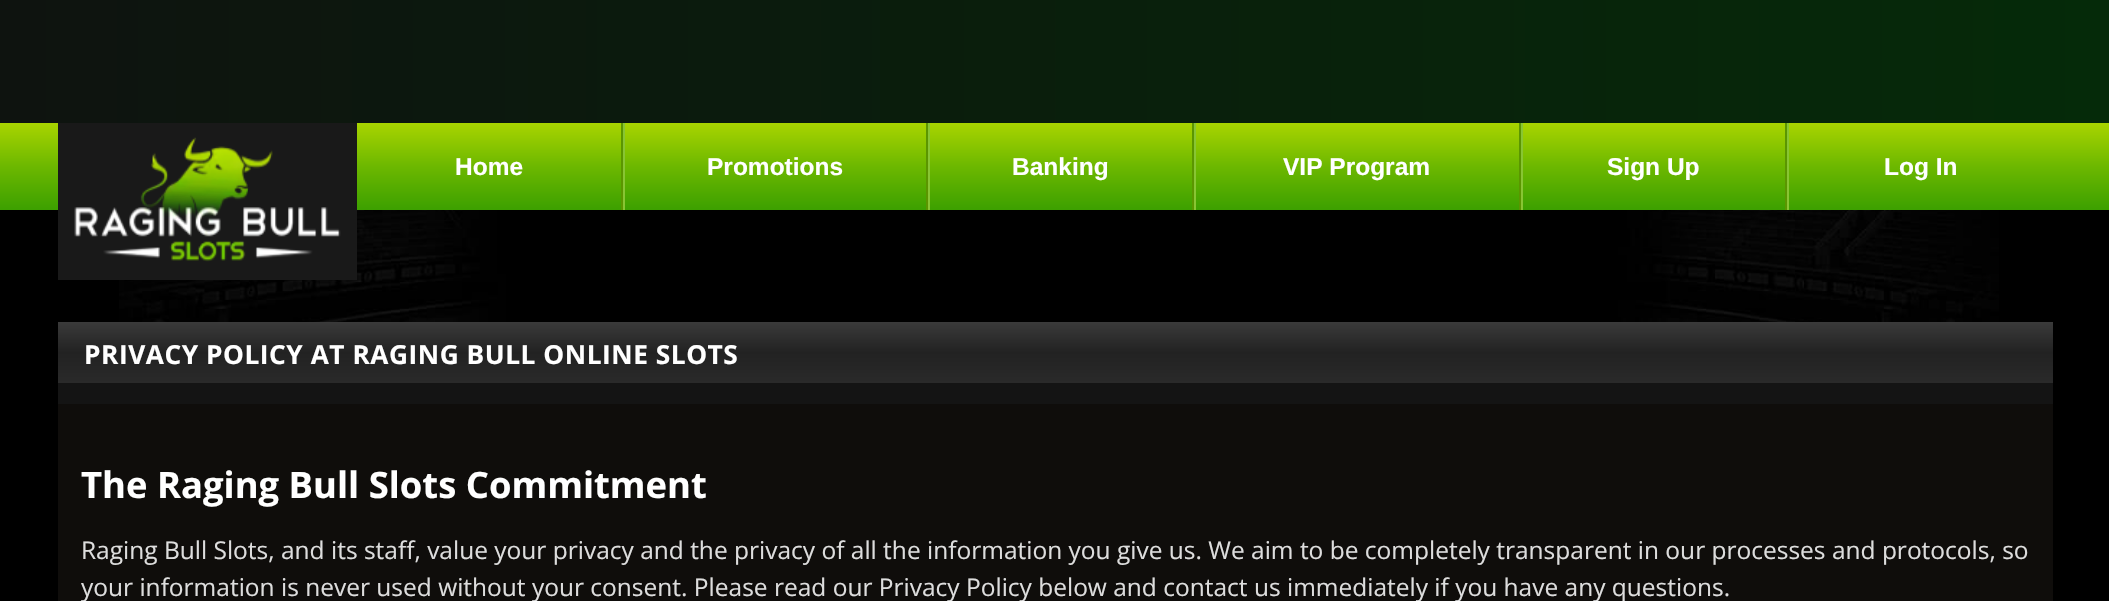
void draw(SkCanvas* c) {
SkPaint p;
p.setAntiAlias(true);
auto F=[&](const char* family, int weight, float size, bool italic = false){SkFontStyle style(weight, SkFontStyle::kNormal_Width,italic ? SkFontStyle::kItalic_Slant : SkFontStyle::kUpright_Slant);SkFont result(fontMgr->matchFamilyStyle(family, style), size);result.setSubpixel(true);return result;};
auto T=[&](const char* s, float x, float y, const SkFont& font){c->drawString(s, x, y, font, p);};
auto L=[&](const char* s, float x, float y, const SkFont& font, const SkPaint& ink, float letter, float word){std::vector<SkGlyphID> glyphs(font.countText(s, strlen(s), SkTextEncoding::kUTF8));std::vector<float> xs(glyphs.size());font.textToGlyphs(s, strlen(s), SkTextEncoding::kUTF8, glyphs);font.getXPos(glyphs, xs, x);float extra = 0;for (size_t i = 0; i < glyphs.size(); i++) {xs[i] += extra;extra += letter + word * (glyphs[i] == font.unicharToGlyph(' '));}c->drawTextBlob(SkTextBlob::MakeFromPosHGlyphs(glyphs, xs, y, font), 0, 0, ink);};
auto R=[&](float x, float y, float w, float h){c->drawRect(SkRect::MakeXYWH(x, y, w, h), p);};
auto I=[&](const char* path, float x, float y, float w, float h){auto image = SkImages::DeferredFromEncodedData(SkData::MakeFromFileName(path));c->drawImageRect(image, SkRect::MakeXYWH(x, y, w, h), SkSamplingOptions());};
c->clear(0xff000000);
I("1.png",119,210,1880,112);
{
const SkColor colors[] = {0xff0e130f,0xff052a09};
const float stops[] = {0,1};
const SkPoint ends[] = {{0,61}, {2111,61}};
p.setShader(SkGradientShader::MakeLinear(ends, colors, stops, 2, SkTileMode::kClamp));
p.setAlpha(255);
}
R(0,0,2109,123);
{
const SkColor colors[] = {0xffaad500,0xff6db800,0xff3ca000};
const float stops[] = {0,.5,1};
const SkPoint ends[] = {{1055,122}, {1055,210}};
p.setShader(SkGradientShader::MakeLinear(ends, colors, stops, 3, SkTileMode::kClamp));
p.setAlpha(255);
}
R(0,123,2109,87);
p.setShader(nullptr);
p.setColor(0xff191919);
R(58,123,299,157);
I("2.png",74,137,267,125);
p.setColor(0xff5b9600);
R(621,123,2,87);
auto f1 = F("Liberation Sans",700,24.5);
p.setColor(0xffffffff);
T("Home",455,175,f1);
p.setColor(0xff5b9600);
R(926,123,2,87);
p.setColor(0xff88c533);
R(623,123,2,87);
p.setColor(0xffffffff);
T("Promotions",707,175,f1);
p.setColor(0xff5b9600);
R(1192,123,2,87);
p.setColor(0xff88c533);
R(928,123,2,87);
p.setColor(0xffffffff);
T("Banking",1012,175,f1);
p.setColor(0xff5b9600);
R(1519,123,2,87);
p.setColor(0xff88c533);
R(1194,123,2,87);
p.setColor(0xffffffff);
T("VIP Program",1283,175,f1);
p.setColor(0xff5b9600);
R(1785,123,2,87);
p.setColor(0xff88c533);
R(1521,123,2,87);
p.setColor(0xffffffff);
T("Sign Up",1607,175,f1);
p.setColor(0xff88c533);
R(1787,123,2,87);
p.setColor(0xffffffff);
T("Log In",1884,175,f1);
p.setColor(0xff141414);
R(58,383,1995,21);
{
const SkColor colors[] = {0xff3a3a3a,0xff222222,0xff2a2a2a};
const float stops[] = {0,.5,1};
const SkPoint ends[] = {{1055,322}, {1055,383}};
p.setShader(SkGradientShader::MakeLinear(ends, colors, stops, 3, SkTileMode::kClamp));
p.setAlpha(255);
}
R(58,322,1995,61);
auto f2 = F("Open Sans",700,26.25);
p.setShader(nullptr);
p.setColor(0xffffffff);
L("PRIVACY POLICY AT RAGING BULL ONLINE SLOTS",84,364,f2,p,.55,0);
p.setColor(0xff0f0d0b);
R(58,404,1995,197);
auto f3 = F("Open Sans",700,36.4);
p.setColor(0xffffffff);
T("The Raging Bull Slots Commitment",81,498,f3);
auto f4 = F("Open Sans",400,24.5);
p.setColor(0xffdddddd);
T("Raging Bull Slots, and its staff, value your privacy and the privacy of all the information you give us. We aim to be completely transparent in our processes and protocols, so",81,559,f4);
T("your information is never used without your consent. Please read our Privacy Policy below and contact us immediately if you have any questions.",81,596,f4);
}
